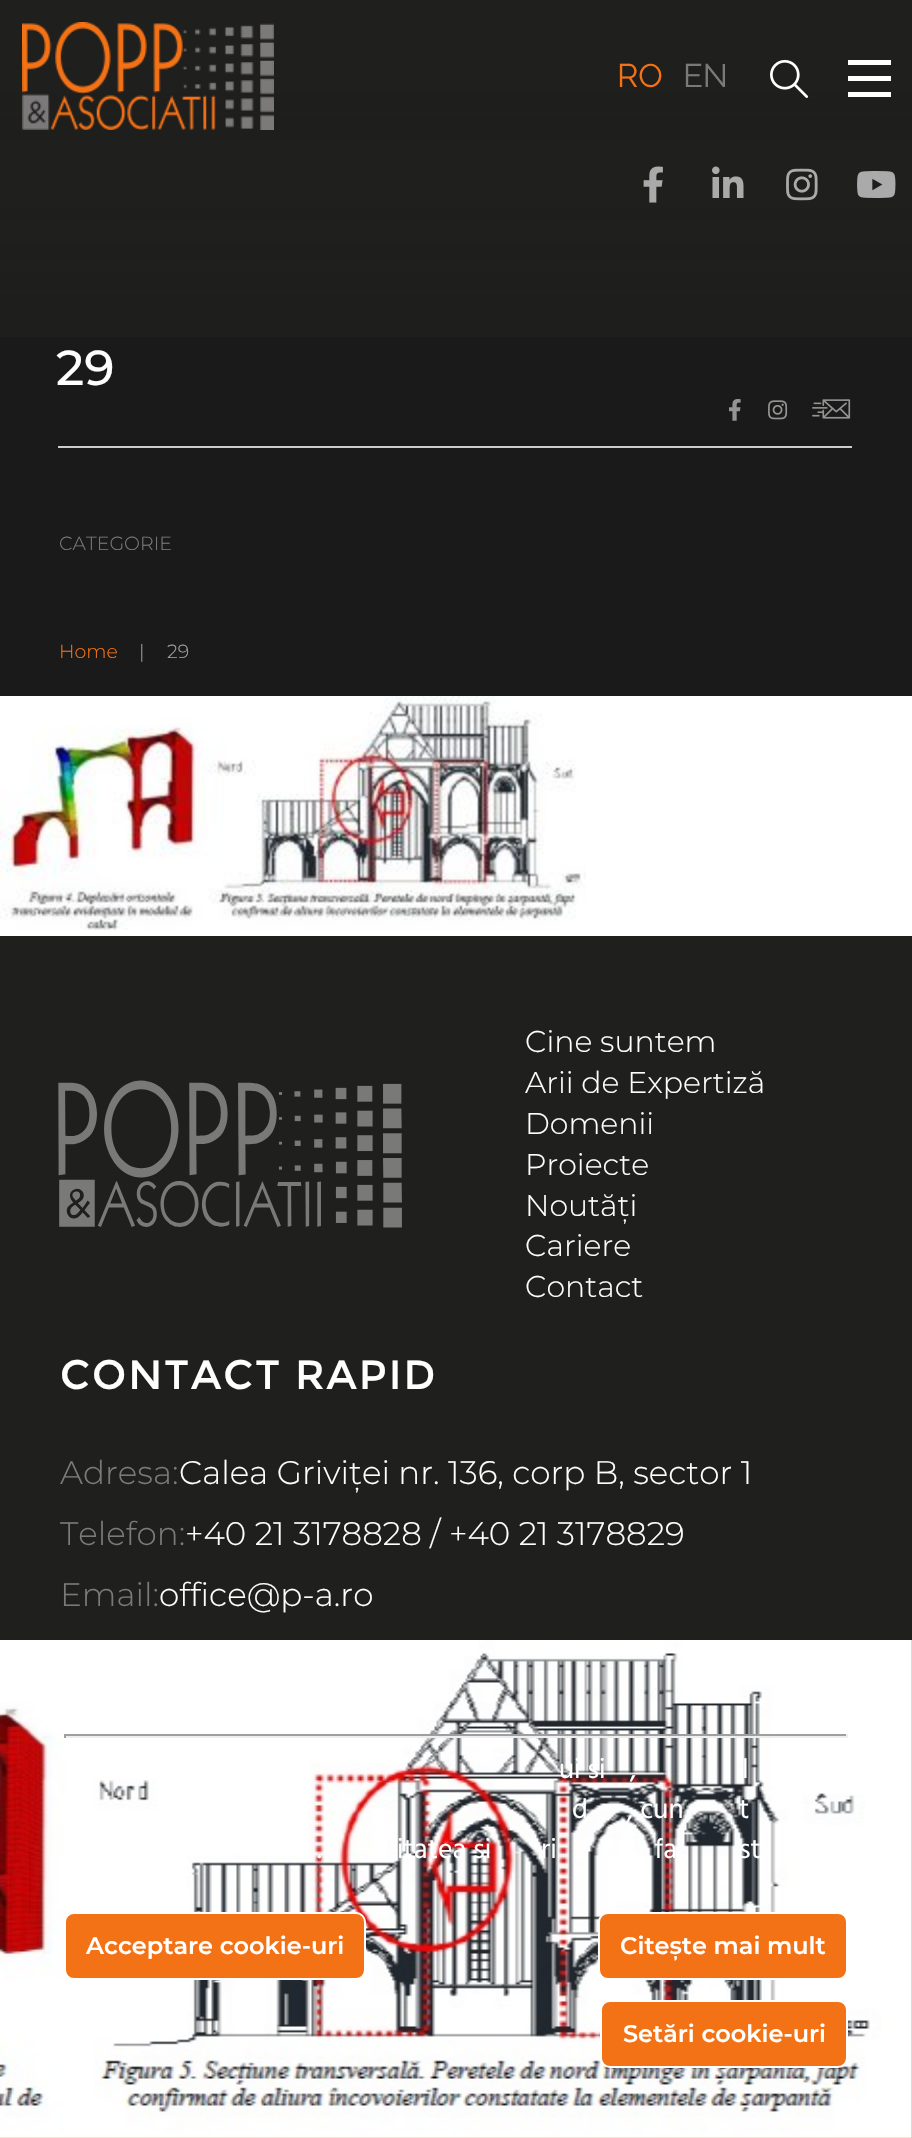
void draw(SkCanvas* c) {
SkPaint p;
p.setAntiAlias(true);
auto F=[&](const char* family, int weight, float size, bool italic = false){SkFontStyle style(weight, SkFontStyle::kNormal_Width,italic ? SkFontStyle::kItalic_Slant : SkFontStyle::kUpright_Slant);SkFont result(fontMgr->matchFamilyStyle(family, style), size);result.setSubpixel(true);return result;};
auto T=[&](const char* s, float x, float y, const SkFont& font){c->drawString(s, x, y, font, p);};
auto L=[&](const char* s, float x, float y, const SkFont& font, const SkPaint& ink, float letter, float word){std::vector<SkGlyphID> glyphs(font.countText(s, strlen(s), SkTextEncoding::kUTF8));std::vector<float> xs(glyphs.size());font.textToGlyphs(s, strlen(s), SkTextEncoding::kUTF8, glyphs);font.getXPos(glyphs, xs, x);float extra = 0;for (size_t i = 0; i < glyphs.size(); i++) {xs[i] += extra;extra += letter + word * (glyphs[i] == font.unicharToGlyph(' '));}c->drawTextBlob(SkTextBlob::MakeFromPosHGlyphs(glyphs, xs, y, font), 0, 0, ink);};
auto R=[&](float x, float y, float w, float h){c->drawRect(SkRect::MakeXYWH(x, y, w, h), p);};
auto I=[&](const char* path, float x, float y, float w, float h){auto image = SkImages::DeferredFromEncodedData(SkData::MakeFromFileName(path));c->drawImageRect(image, SkRect::MakeXYWH(x, y, w, h), SkSamplingOptions());};
auto P=[&](const char* data, bool evenOdd = false){SkPath result = *SkParsePath::FromSVGString(data);if (evenOdd) result.setFillType(SkPathFillType::kEvenOdd);return result;};
c->clear(0xffffffff);
p.setColor(0xff1a1a1a);
R(0,0,912,696);
I("7.png",0,0,912,337);
I("1.png",22,22,252,108);
auto f1 = F("Raleway",400,32.6);
p.setColor(0xfff47216);
T("RO",617,87,f1);
p.setColor(0xff7b7979);
T("EN",683,87,f1);
I("2.png",770,59,39,39);
p.setColor(0xffffffff);
c->drawPath(P("M848 97h43v-5h-43zm0-16h43v-5h-43zm0-21v5h43v-5z"),p);
I("3.png",643,166,20,37);
I("4.png",712,166,32,32);
I("5.png",786,168,32,33);
I("6.png",857,171,39,27);
p.setColor(0xffcccccc);
R(58,446,794,2);
auto f2 = F("Montserrat",500,49);
p.setColor(0xffffffff);
T("29",56,385,f2);
I("8.png",729,399,12,22);
I("9.png",768,400,20,20);
I("10.png",812,399,39,20);
auto f3 = F("Montserrat",300,19);
p.setColor(0xff7b7979);
T("CATEGORIE",59,550,f3);
p.setColor(0xfff47216);
T("Home",59,658,f3);
p.setColor(0xffa1a1a1);
T("|",139,658,f3);
T("29",167,658,f3);
I("11.png",0,696,586,234);
p.setColor(0xff1f1f1d);
R(0,936,912,704);
I("12.png",58,1080,344,148);
auto f4 = F("Montserrat",300,30);
p.setColor(0xffffffff);
T("Cine suntem",525,1052,f4);
T("Arii de Expertiză",525,1093,f4);
T("Domenii",525,1134,f4);
T("Proiecte",525,1175,f4);
T("Noutăți",525,1216,f4);
T("Cariere",525,1256,f4);
T("Contact",525,1297,f4);
auto f5 = F("Montserrat",400,40.75);
L("CONTACT RAPID",60,1389,f5,p,2,0);
auto f6 = F("Montserrat",300,32.6);
p.setColor(0xff7b7979);
T("Adresa:",60,1484,f6);
p.setColor(0xffffffff);
T("Calea Griviței nr. 136, corp B, sector 1",179,1484,f6);
p.setColor(0xff7b7979);
T("Telefon:",60,1545,f6);
p.setColor(0xffffffff);
T("+40 21 3178828 / +40 21 3178829",185,1545,f6);
p.setColor(0xff7b7979);
T("Email:",60,1606,f6);
p.setColor(0xffffffff);
T("office@p-a.ro",159,1606,f6);
p.setColor(0xfff47216);
R(0,1640,912,498);
I("13.png",0,1640,912,498);
p.setColor(0xff9f9f9f);
R(64,1734,784,2);
p.setColor(0xffeeeeee);
R(846,1734,2,4);
R(64,1736,784,2);
p.setColor(0xff9f9f9f);
R(64,1734,2,4);
auto f7 = F("Hind",400,28);
p.setColor(0xffffffff);
T("ui si",559,1778,f7);
T(",",630,1778,f7);
T("l",742,1778,f7);
T("d",572,1818,f7);
T(", cun",627,1818,f7);
T("t",739,1818,f7);
T(".",317,1858,f7);
T("itatea si",397,1858,f7);
T("ri",541,1858,f7);
T("fa",654,1858,f7);
T("st",739,1858,f7);
p.setColor(0xfff47216);
c->drawRoundRect(SkRect::MakeXYWH(65,1913,300,66),9,9,p);
p.setStroke(true);
p.setStrokeWidth(2);
p.setColor(0xffffffff);
c->drawRoundRect(SkRect::MakeXYWH(65,1913,300,66),9,9,p);
auto f8 = F("Montserrat",600,24);
p.setStroke(false);
T("Acceptare cookie-uri",86,1954,f8);
p.setColor(0xfff47216);
c->drawRoundRect(SkRect::MakeXYWH(599,1913,248,66),9,9,p);
p.setStroke(true);
p.setColor(0xffffffff);
c->drawRoundRect(SkRect::MakeXYWH(599,1913,248,66),9,9,p);
p.setStroke(false);
T("Citește mai mult",620,1954,f8);
p.setColor(0xfff47216);
c->drawRoundRect(SkRect::MakeXYWH(601,2001,246,66),9,9,p);
p.setStroke(true);
p.setColor(0xffffffff);
c->drawRoundRect(SkRect::MakeXYWH(601,2001,246,66),9,9,p);
p.setStroke(false);
T("Setări cookie-uri",623,2042,f8);
}
